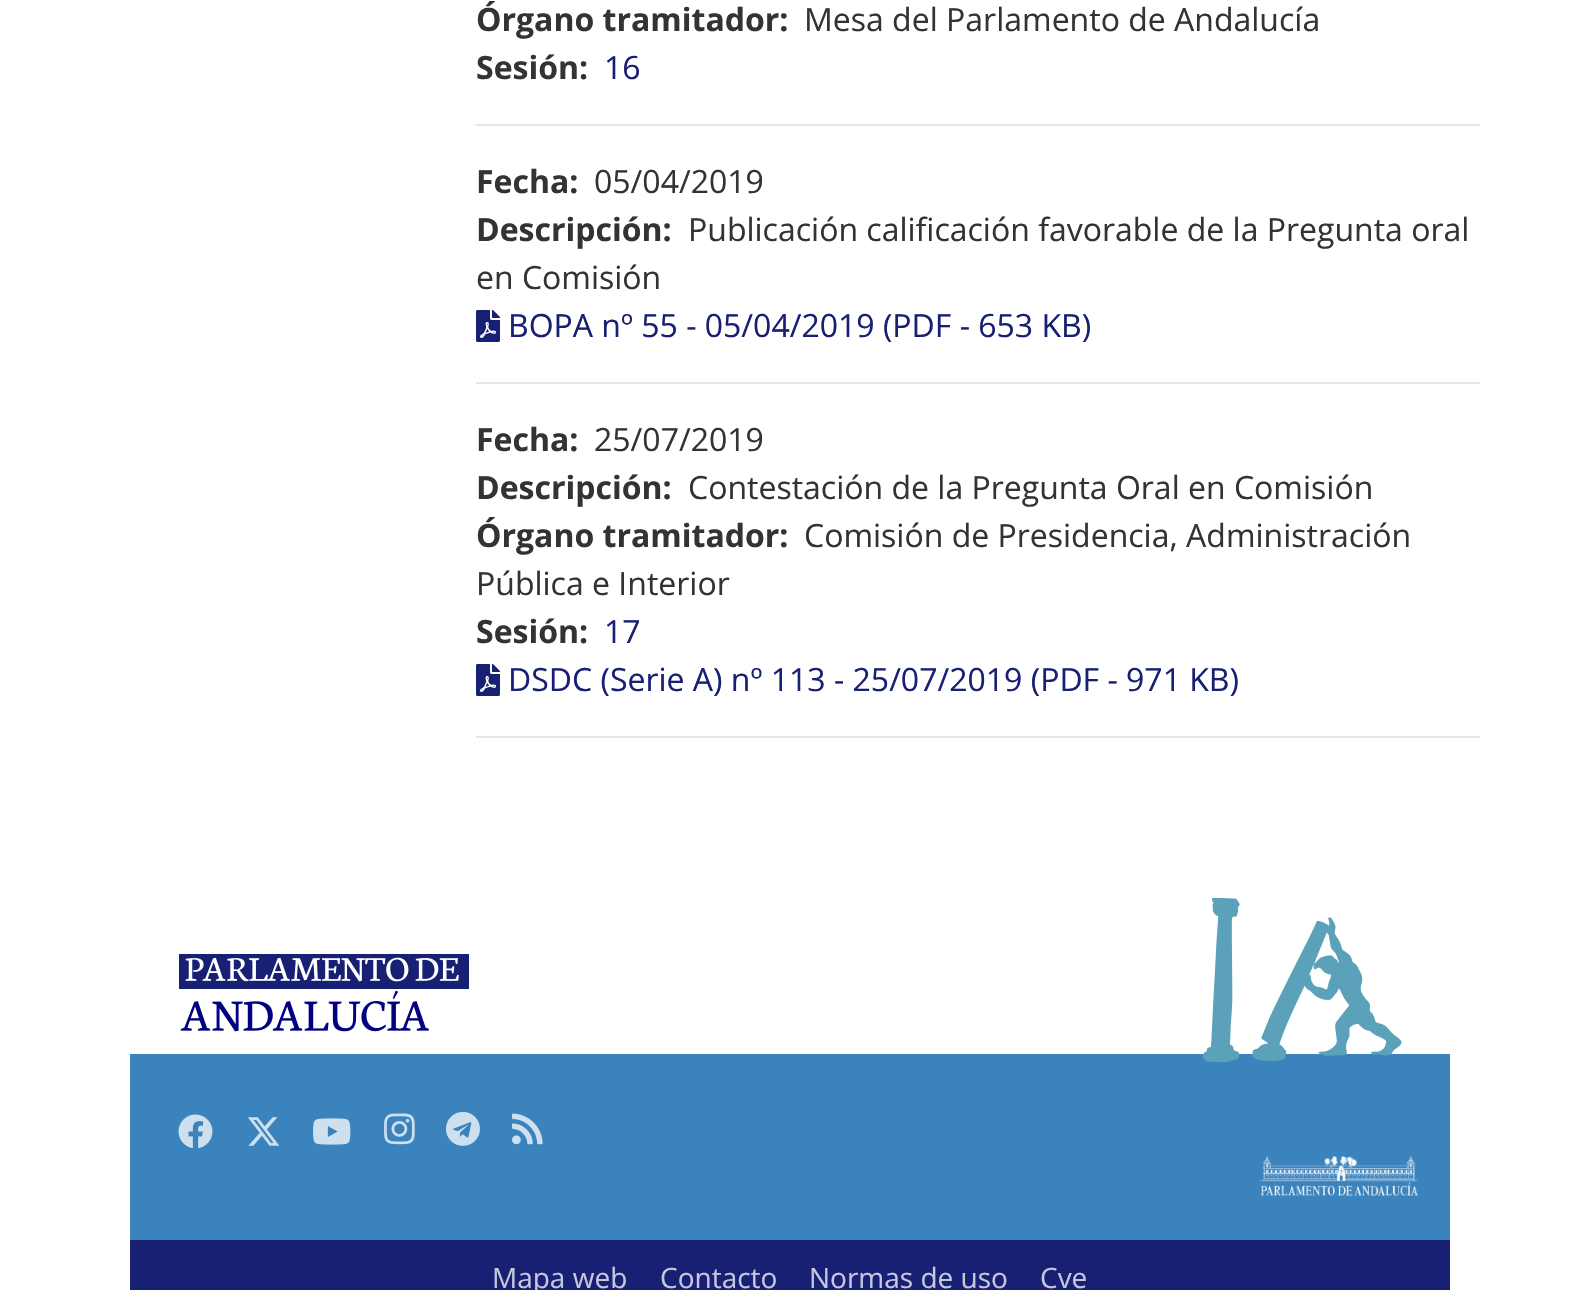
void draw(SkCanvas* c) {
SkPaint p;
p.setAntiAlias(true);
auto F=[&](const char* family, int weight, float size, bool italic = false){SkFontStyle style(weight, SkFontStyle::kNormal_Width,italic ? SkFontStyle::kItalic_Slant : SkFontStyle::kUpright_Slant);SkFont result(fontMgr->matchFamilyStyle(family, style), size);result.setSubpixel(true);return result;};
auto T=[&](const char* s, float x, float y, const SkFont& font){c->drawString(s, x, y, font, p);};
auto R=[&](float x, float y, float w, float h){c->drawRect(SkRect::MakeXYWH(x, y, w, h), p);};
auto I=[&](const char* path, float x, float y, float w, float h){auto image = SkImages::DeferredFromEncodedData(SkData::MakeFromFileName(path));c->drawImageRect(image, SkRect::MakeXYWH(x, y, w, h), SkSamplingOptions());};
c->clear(0xffffffff);
auto f1 = F("Open Sans",700,32);
p.setColor(0xff333333);
T("Órgano tramitador:",476,31,f1);
auto f2 = F("Open Sans",400,32);
T("Mesa del Parlamento de Andalucía",804,31,f2);
T("Sesión:",476,79,f1);
p.setColor(0xff172073);
T("16",604,79,f2);
p.setColor(0xffe6e6e6);
R(476,124,1004,2);
p.setColor(0xff333333);
T("Fecha:",476,193,f1);
T("05/04/2019",594,193,f2);
T("Publicación calificación favorable de la Pregunta oral",688,241,f2);
T("en Comisión",476,289,f2);
T("Descripción:",476,241,f1);
I("1.png",476,310,24,32);
p.setColor(0xff172073);
T("BOPA nº 55 - 05/04/2019 (PDF - 653 KB)",508,337,f2);
p.setColor(0xffe6e6e6);
R(476,382,1004,2);
p.setColor(0xff333333);
T("Fecha:",476,451,f1);
T("25/07/2019",594,451,f2);
T("Descripción:",476,499,f1);
T("Contestación de la Pregunta Oral en Comisión",688,499,f2);
T("Órgano tramitador:",476,547,f1);
T("Comisión de Presidencia, Administración",804,547,f2);
T("Pública e Interior",476,595,f2);
T("Sesión:",476,643,f1);
p.setColor(0xff172073);
T("17",604,643,f2);
I("1.png",476,664,24,32);
T("DSDC (Serie A) nº 113 - 25/07/2019 (PDF - 971 KB)",508,691,f2);
p.setColor(0xffe6e6e6);
R(476,736,1004,2);
I("2.png",179,954,290,78);
p.setColor(0xff3b83bd);
R(130,1054,1320,186);
I("3.png",1202,898,200,164);
I("4.png",178,1114,35,34);
I("5.png",248,1117,32,29);
I("6.png",313,1118,38,27);
I("7.png",384,1113,31,32);
I("8.png",446,1111,34,35);
I("9.png",512,1113,31,32);
I("10.png",1260,1156,158,40);
p.setColor(0xff172073);
R(130,1240,1320,50);
auto f3 = F("Open Sans",400,28);
p.setColor(0xffc5c7dc);
T("Mapa web",492,1288,f3);
T("Contacto",660,1288,f3);
T("Normas de uso",809,1288,f3);
T("Cve",1040,1288,f3);
}
